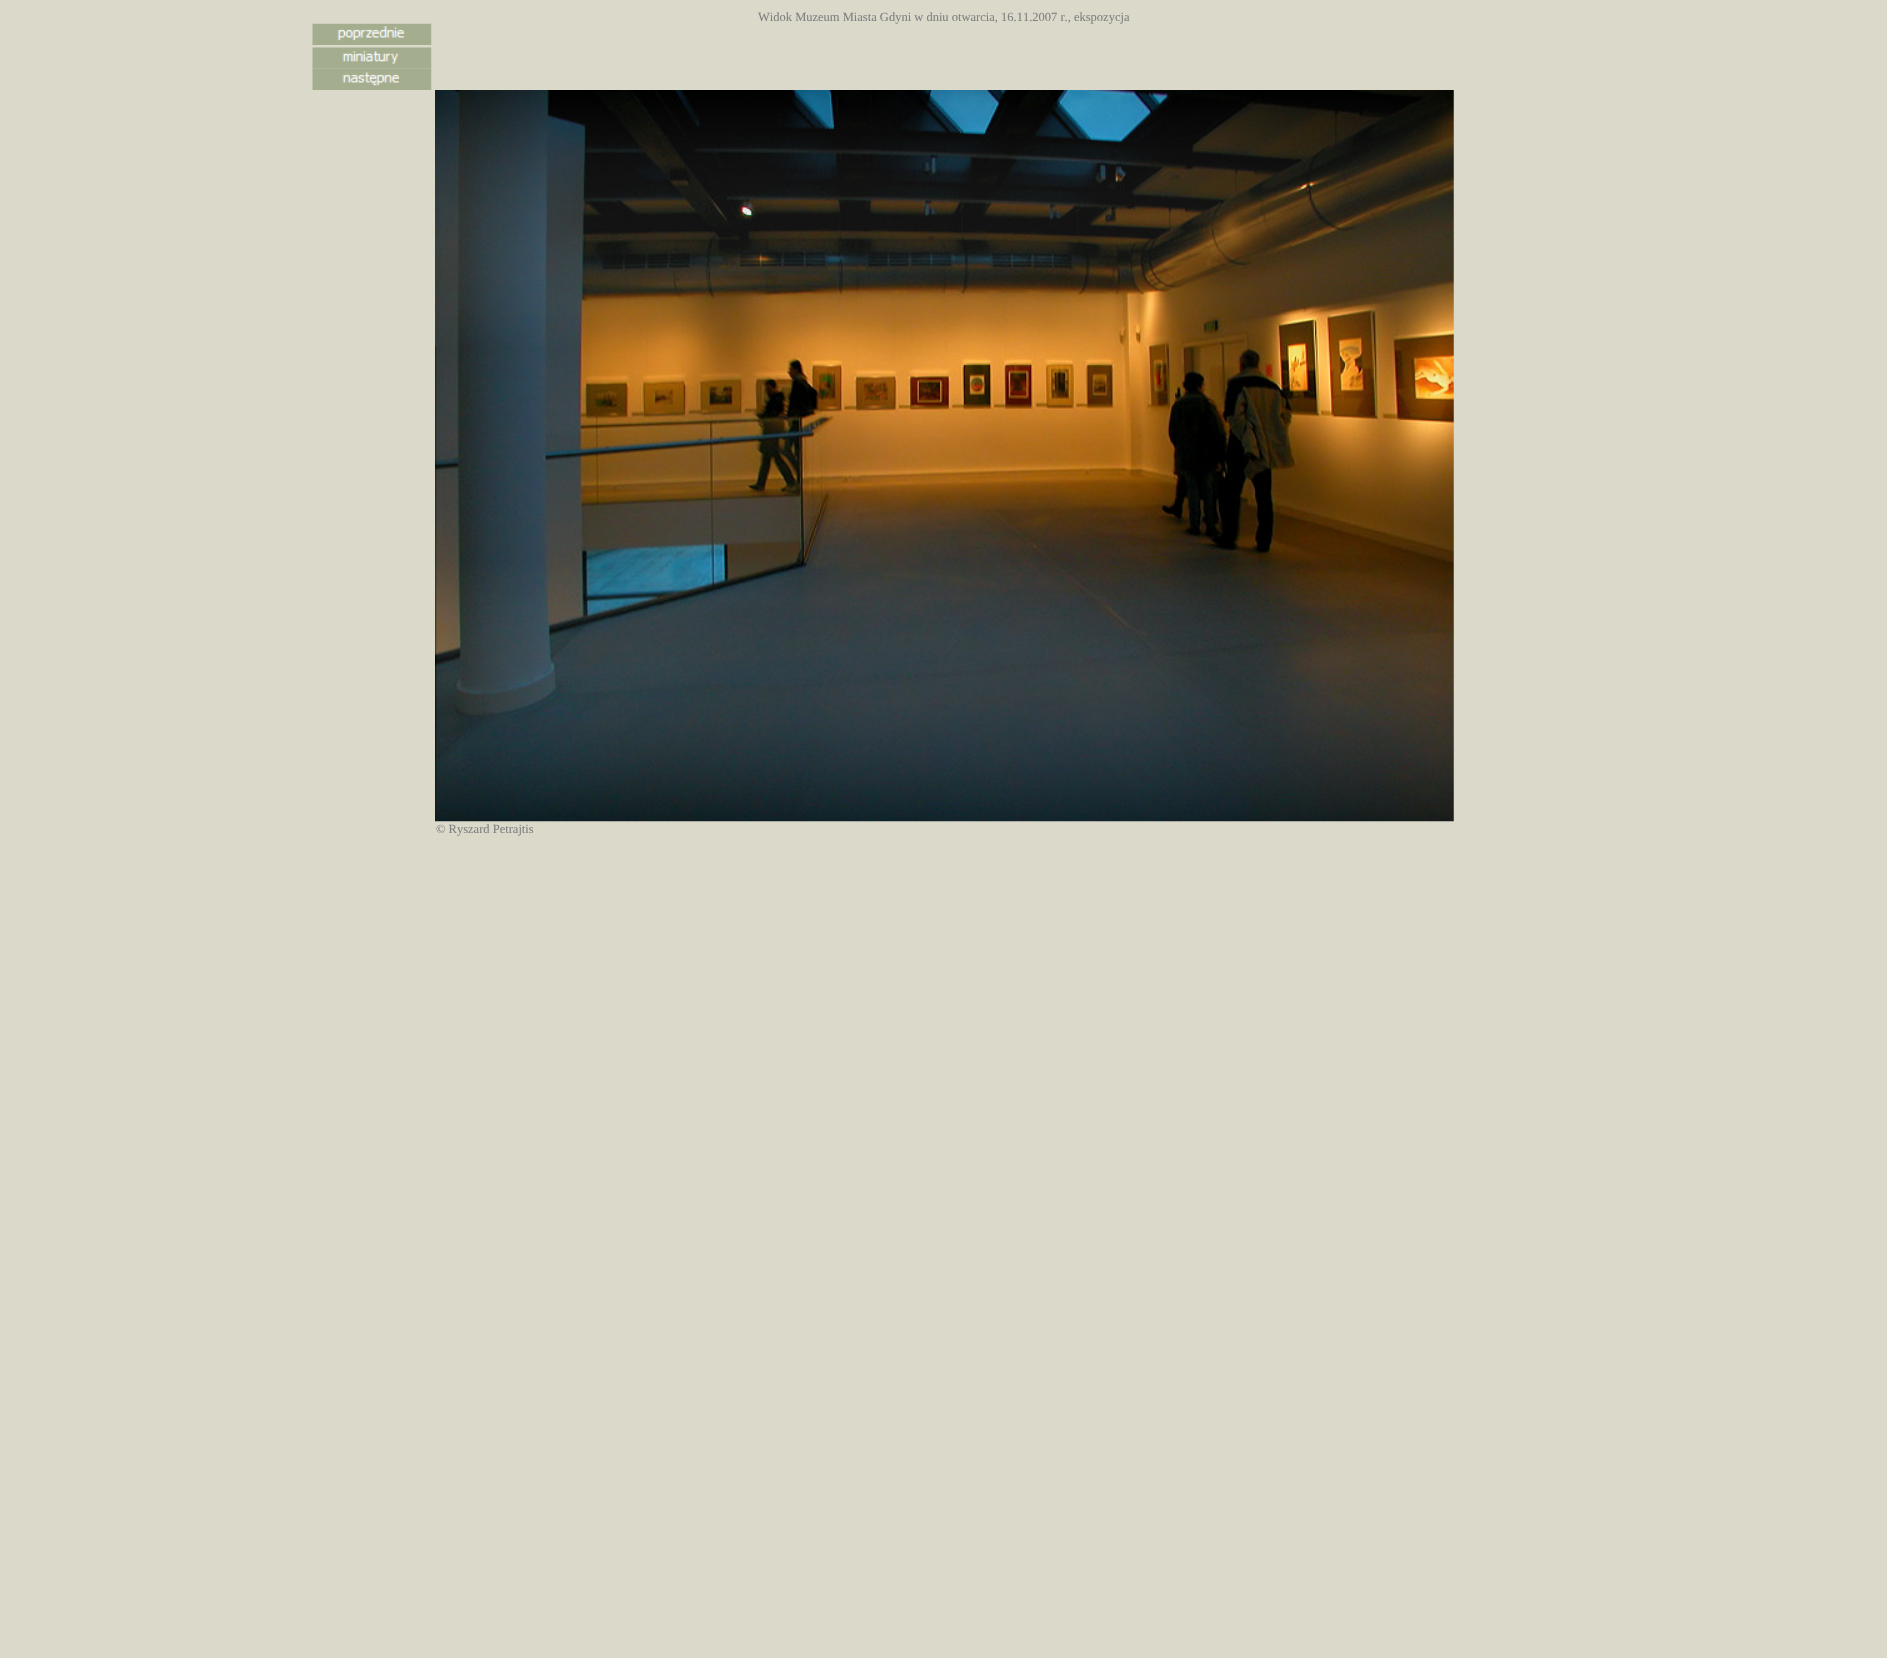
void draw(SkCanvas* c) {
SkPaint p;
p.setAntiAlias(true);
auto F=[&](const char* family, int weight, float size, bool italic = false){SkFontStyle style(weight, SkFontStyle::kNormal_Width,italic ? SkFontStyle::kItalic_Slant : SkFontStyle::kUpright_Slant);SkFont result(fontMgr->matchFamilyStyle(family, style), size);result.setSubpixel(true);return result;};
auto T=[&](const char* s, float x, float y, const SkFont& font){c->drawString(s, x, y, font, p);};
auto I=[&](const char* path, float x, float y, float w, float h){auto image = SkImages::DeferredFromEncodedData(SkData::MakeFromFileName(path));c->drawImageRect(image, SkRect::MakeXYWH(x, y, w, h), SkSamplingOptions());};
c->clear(0xffdbd9ca);
auto f1 = F("Liberation Serif",400,12.5);
p.setColor(0xff808080);
T("Widok Muzeum Miasta Gdyni w dniu otwarcia, 16.11.2007 r., ekspozycja",758,21,f1);
I("1.png",312,23,120,22);
I("2.png",312,47,120,22);
I("3.png",312,68,120,22);
I("4.png",435,90,1019,732);
T("© Ryszard Petrajtis",436,833,f1);
}
